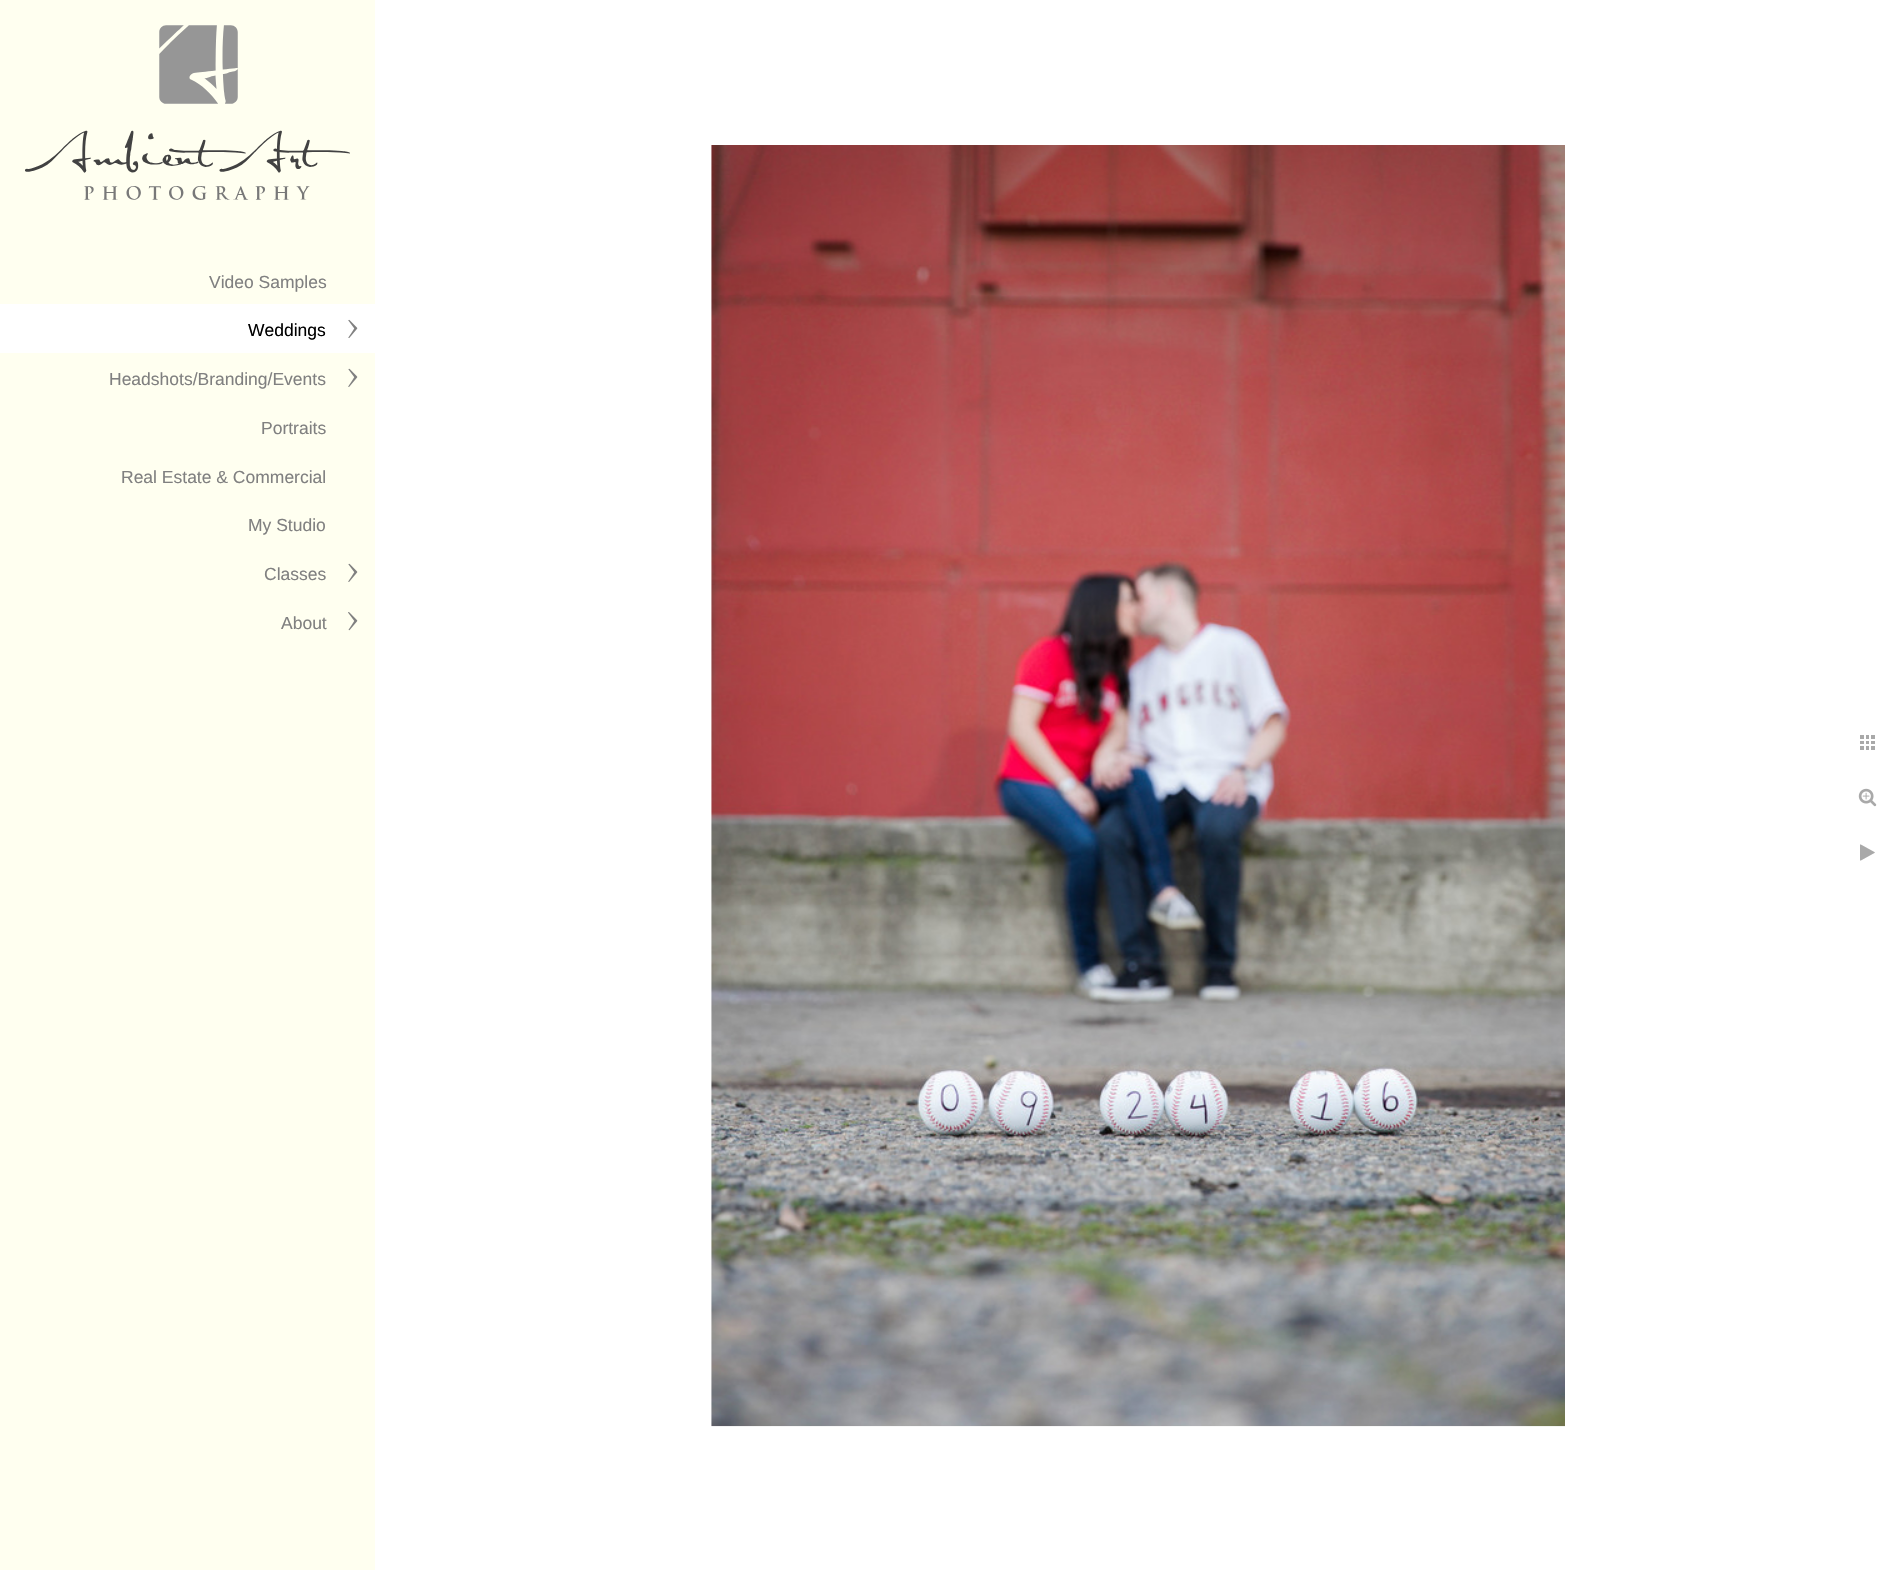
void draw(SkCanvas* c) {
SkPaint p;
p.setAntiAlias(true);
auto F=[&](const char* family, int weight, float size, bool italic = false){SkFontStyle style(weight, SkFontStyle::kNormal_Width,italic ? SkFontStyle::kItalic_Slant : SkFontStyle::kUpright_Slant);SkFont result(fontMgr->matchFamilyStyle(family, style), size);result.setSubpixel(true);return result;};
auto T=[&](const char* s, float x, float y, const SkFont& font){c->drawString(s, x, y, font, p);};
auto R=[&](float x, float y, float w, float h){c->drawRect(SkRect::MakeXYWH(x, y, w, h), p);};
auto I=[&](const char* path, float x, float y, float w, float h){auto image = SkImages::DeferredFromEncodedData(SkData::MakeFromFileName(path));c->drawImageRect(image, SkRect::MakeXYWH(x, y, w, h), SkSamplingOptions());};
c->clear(0xffffffff);
p.setColor(0xfffffff0);
R(0,0,375,1570);
I("1.png",25,25,325,175);
auto f1 = F("Liberation Sans",400,17.5);
p.setColor(0xff808080);
T("Video Samples",209,288,f1);
p.setColor(0xffffffff);
R(0,304,375,49);
p.setColor(0xff000000);
T("Weddings",248,336,f1);
I("2.png",348,319,10,19);
p.setColor(0xff808080);
T("Headshots/Branding/Events",109,385,f1);
I("3.png",348,368,10,19);
T("Portraits",261,434,f1);
T("Real Estate & Commercial",121,483,f1);
T("My Studio",248,531,f1);
T("Classes",264,580,f1);
I("3.png",348,563,10,19);
T("About",281,629,f1);
I("4.png",348,612,10,19);
I("5.png",711,145,854,1282);
I("6.png",1860,735,15,15);
I("7.png",1858,788,19,19);
I("8.png",1860,844,15,17);
}
